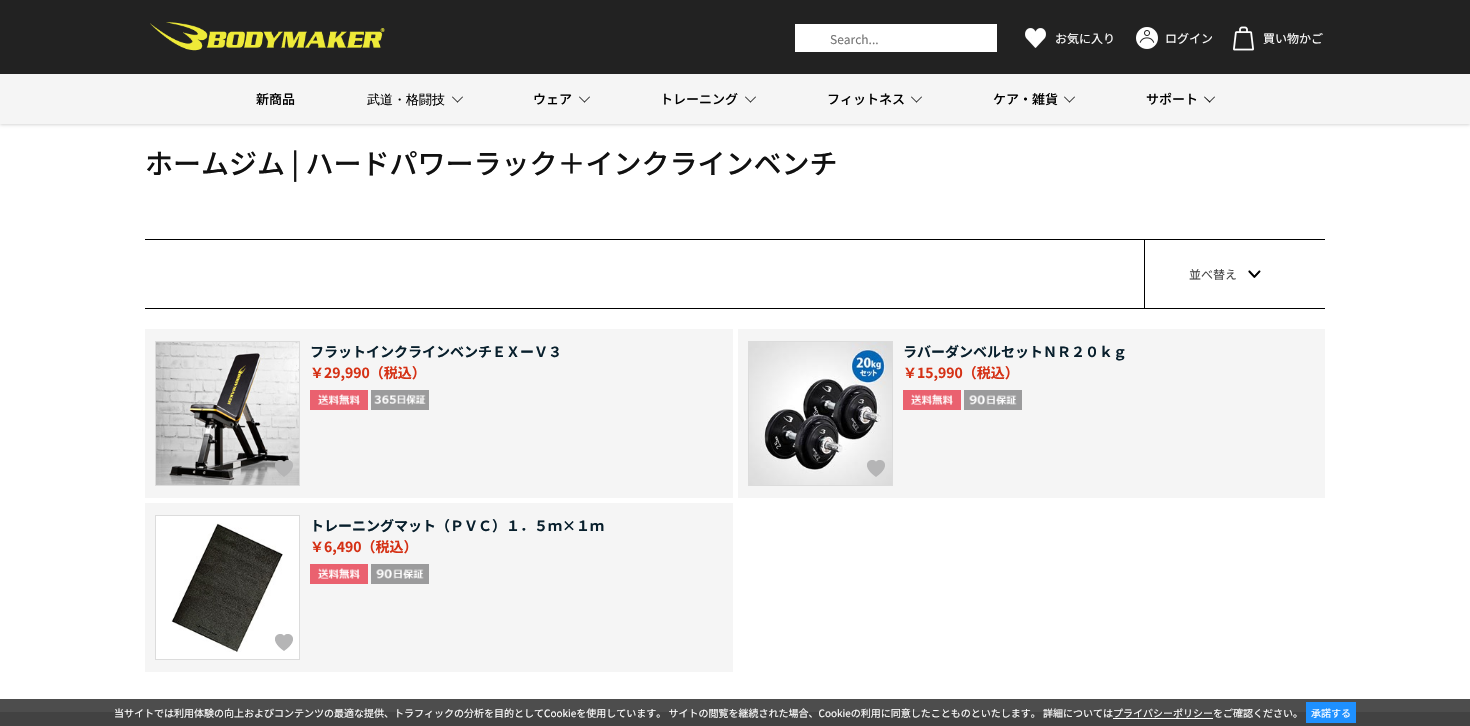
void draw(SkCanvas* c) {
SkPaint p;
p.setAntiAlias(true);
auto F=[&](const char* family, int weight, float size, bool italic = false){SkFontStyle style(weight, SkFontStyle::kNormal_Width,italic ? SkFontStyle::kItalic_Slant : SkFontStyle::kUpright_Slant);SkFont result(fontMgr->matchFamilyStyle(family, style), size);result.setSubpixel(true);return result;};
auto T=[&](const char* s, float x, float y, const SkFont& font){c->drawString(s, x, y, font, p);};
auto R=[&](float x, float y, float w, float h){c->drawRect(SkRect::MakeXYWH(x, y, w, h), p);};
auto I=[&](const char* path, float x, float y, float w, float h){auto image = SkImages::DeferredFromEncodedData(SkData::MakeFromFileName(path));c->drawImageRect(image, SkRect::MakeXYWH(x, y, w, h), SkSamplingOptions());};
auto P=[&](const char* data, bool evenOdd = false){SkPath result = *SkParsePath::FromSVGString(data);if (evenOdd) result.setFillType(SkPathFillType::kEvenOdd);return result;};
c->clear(0xffffffff);
p.setColor(0xff4d4d4d);
R(0,699,1470,13);
p.setColor(0x29000000);
p.setMaskFilter(SkMaskFilter::MakeBlur(kNormal_SkBlurStyle, 1.5));
c->drawRect(SkRect::MakeXYWH(0,75,1470,50),p);
p.setMaskFilter(nullptr);
p.setColor(0xff222222);
R(0,0,1470,74);
I("1.png",150,22,235,29);
p.setColor(0xffffffff);
R(795,24,202,28);
auto f1 = F("Noto Sans JP",400,12);
p.setColor(0xff757575);
T("Search...",830,44,f1);
I("2.png",1025,28,21,20);
p.setColor(0xffffffff);
T("お気に入り",1055,43,f1);
I("3.png",1136,27,22,22);
T("ログイン",1165,43,f1);
I("4.png",1233,26,21,25);
T("買い物かご",1263,43,f1);
p.setColor(0xfff5f5f5);
R(0,74,1470,50);
auto f2 = F("Noto Sans JP",500,13);
p.setColor(0xff000000);
T("新商品",256,104,f2);
auto f3 = F("WenQuanYi Zen Hei",500,13);
T("武道・格闘技",367,104,f3);
c->drawPath(P("M462.5 96.5l.5 .5l-5.5 5.5l-.5-.5z"),p);
c->drawPath(P("M452.5 96.5l5.5 5.5l-.5 .5l-5.5-5.5z"),p);
T("ウェア",533,104,f2);
c->drawPath(P("M589.5 96.5l.5 .5l-5.5 5.5l-.5-.5z"),p);
c->drawPath(P("M579.5 96.5l5.5 5.5l-.5 .5l-5.5-5.5z"),p);
T("トレーニング",660,104,f2);
c->drawPath(P("M755.5 96.5l.5 .5l-5.5 5.5l-.5-.5z"),p);
c->drawPath(P("M745.5 96.5l5.5 5.5l-.5 .5l-5.5-5.5z"),p);
T("フィットネス",827,104,f2);
c->drawPath(P("M921.5 96.5l.5 .5l-5.5 5.5l-.5-.5z"),p);
c->drawPath(P("M911.5 96.5l5.5 5.5l-.5 .5l-5.5-5.5z"),p);
T("ケア・雑貨",993,104,f2);
c->drawPath(P("M1074.5 96.5l.5 .5l-5.5 5.5l-.5-.5z"),p);
c->drawPath(P("M1064.5 96.5l5.5 5.5l-.5 .5l-5.5-5.5z"),p);
T("サポート",1146,104,f2);
c->drawPath(P("M1214.5 96.5l.5 .5l-5.5 5.5l-.5-.5z"),p);
c->drawPath(P("M1204.5 96.5l6 5.5l-1 .5l-5.5-5.5z"),p);
auto f4 = F("Noto Sans JP",500,28);
p.setColor(0xff111111);
T("ホームジム | ハードパワーラック＋インクラインベンチ",145,174,f4);
p.setColor(0xff000000);
R(145,239,1180,1);
R(145,308,1180,1);
R(1144,240,1,68);
p.setColor(0xff444444);
T("並べ替え",1189,279,f1);
I("5.png",1248,270,13,8);
p.setColor(0xfff5f5f5);
R(145,329,588,169);
p.setStroke(true);
p.setStrokeWidth(1);
p.setColor(0xffdcdcdc);
c->drawRect(SkRect::MakeXYWH(155.5,341.5,144,144),p);
I("6.png",156,342,143,143);
auto f5 = F("Noto Sans JP",700,14);
p.setStroke(false);
p.setColor(0xff081f2c);
T("フラットインクラインベンチＥＸーＶ３",310,357,f5);
p.setColor(0xffd53115);
T("￥29,990（税込）",310,378,f5);
I("7.png",310,390,58,20);
I("8.png",371,390,58,20);
I("9.png",275,460,18,17);
p.setColor(0xfff5f5f5);
R(738,329,587,169);
p.setStroke(true);
p.setColor(0xffdcdcdc);
c->drawRect(SkRect::MakeXYWH(748.5,341.5,144,144),p);
I("10.png",749,342,143,143);
p.setStroke(false);
p.setColor(0xff081f2c);
T("ラバーダンベルセットＮＲ２０ｋｇ",903,357,f5);
p.setColor(0xffd53115);
T("￥15,990（税込）",903,378,f5);
I("7.png",903,390,58,20);
I("11.png",964,390,58,20);
I("12.png",867,460,18,17);
p.setColor(0xfff5f5f5);
R(145,503,588,169);
p.setColor(0xffffffff);
c->drawRect(SkRect::MakeXYWH(155.5,515.5,144,144),p);
p.setStroke(true);
p.setColor(0xffdcdcdc);
c->drawRect(SkRect::MakeXYWH(155.5,515.5,144,144),p);
I("13.png",171,523,112,129);
p.setStroke(false);
p.setColor(0xff081f2c);
T("トレーニングマット（ＰＶＣ）１．５ｍ×１ｍ",310,531,f5);
p.setColor(0xffd53115);
T("￥6,490（税込）",310,552,f5);
I("14.png",310,564,58,20);
I("15.png",371,564,58,20);
I("16.png",275,634,18,17);
p.setColor(0xff424242);
R(0,712,1470,14);
auto f6 = F("Noto Sans JP",400,10);
p.setColor(0xffffffff);
T("当サイトでは利用体験の向上およびコンテンツの最適な提供、トラフィックの分析を目的としてCookieを使用しています。 サイトの閲覧を継続された場合、Cookieの利用に同意したことものといたします。 詳細についてはプライバシーポリシーをご確認ください。",114,717,f6);
p.setColor(0xff1e90ff);
R(1306,702,50,21);
p.setColor(0xffffffff);
T("承諾する",1311,717,f6);
R(1113,718,100,1);
}
